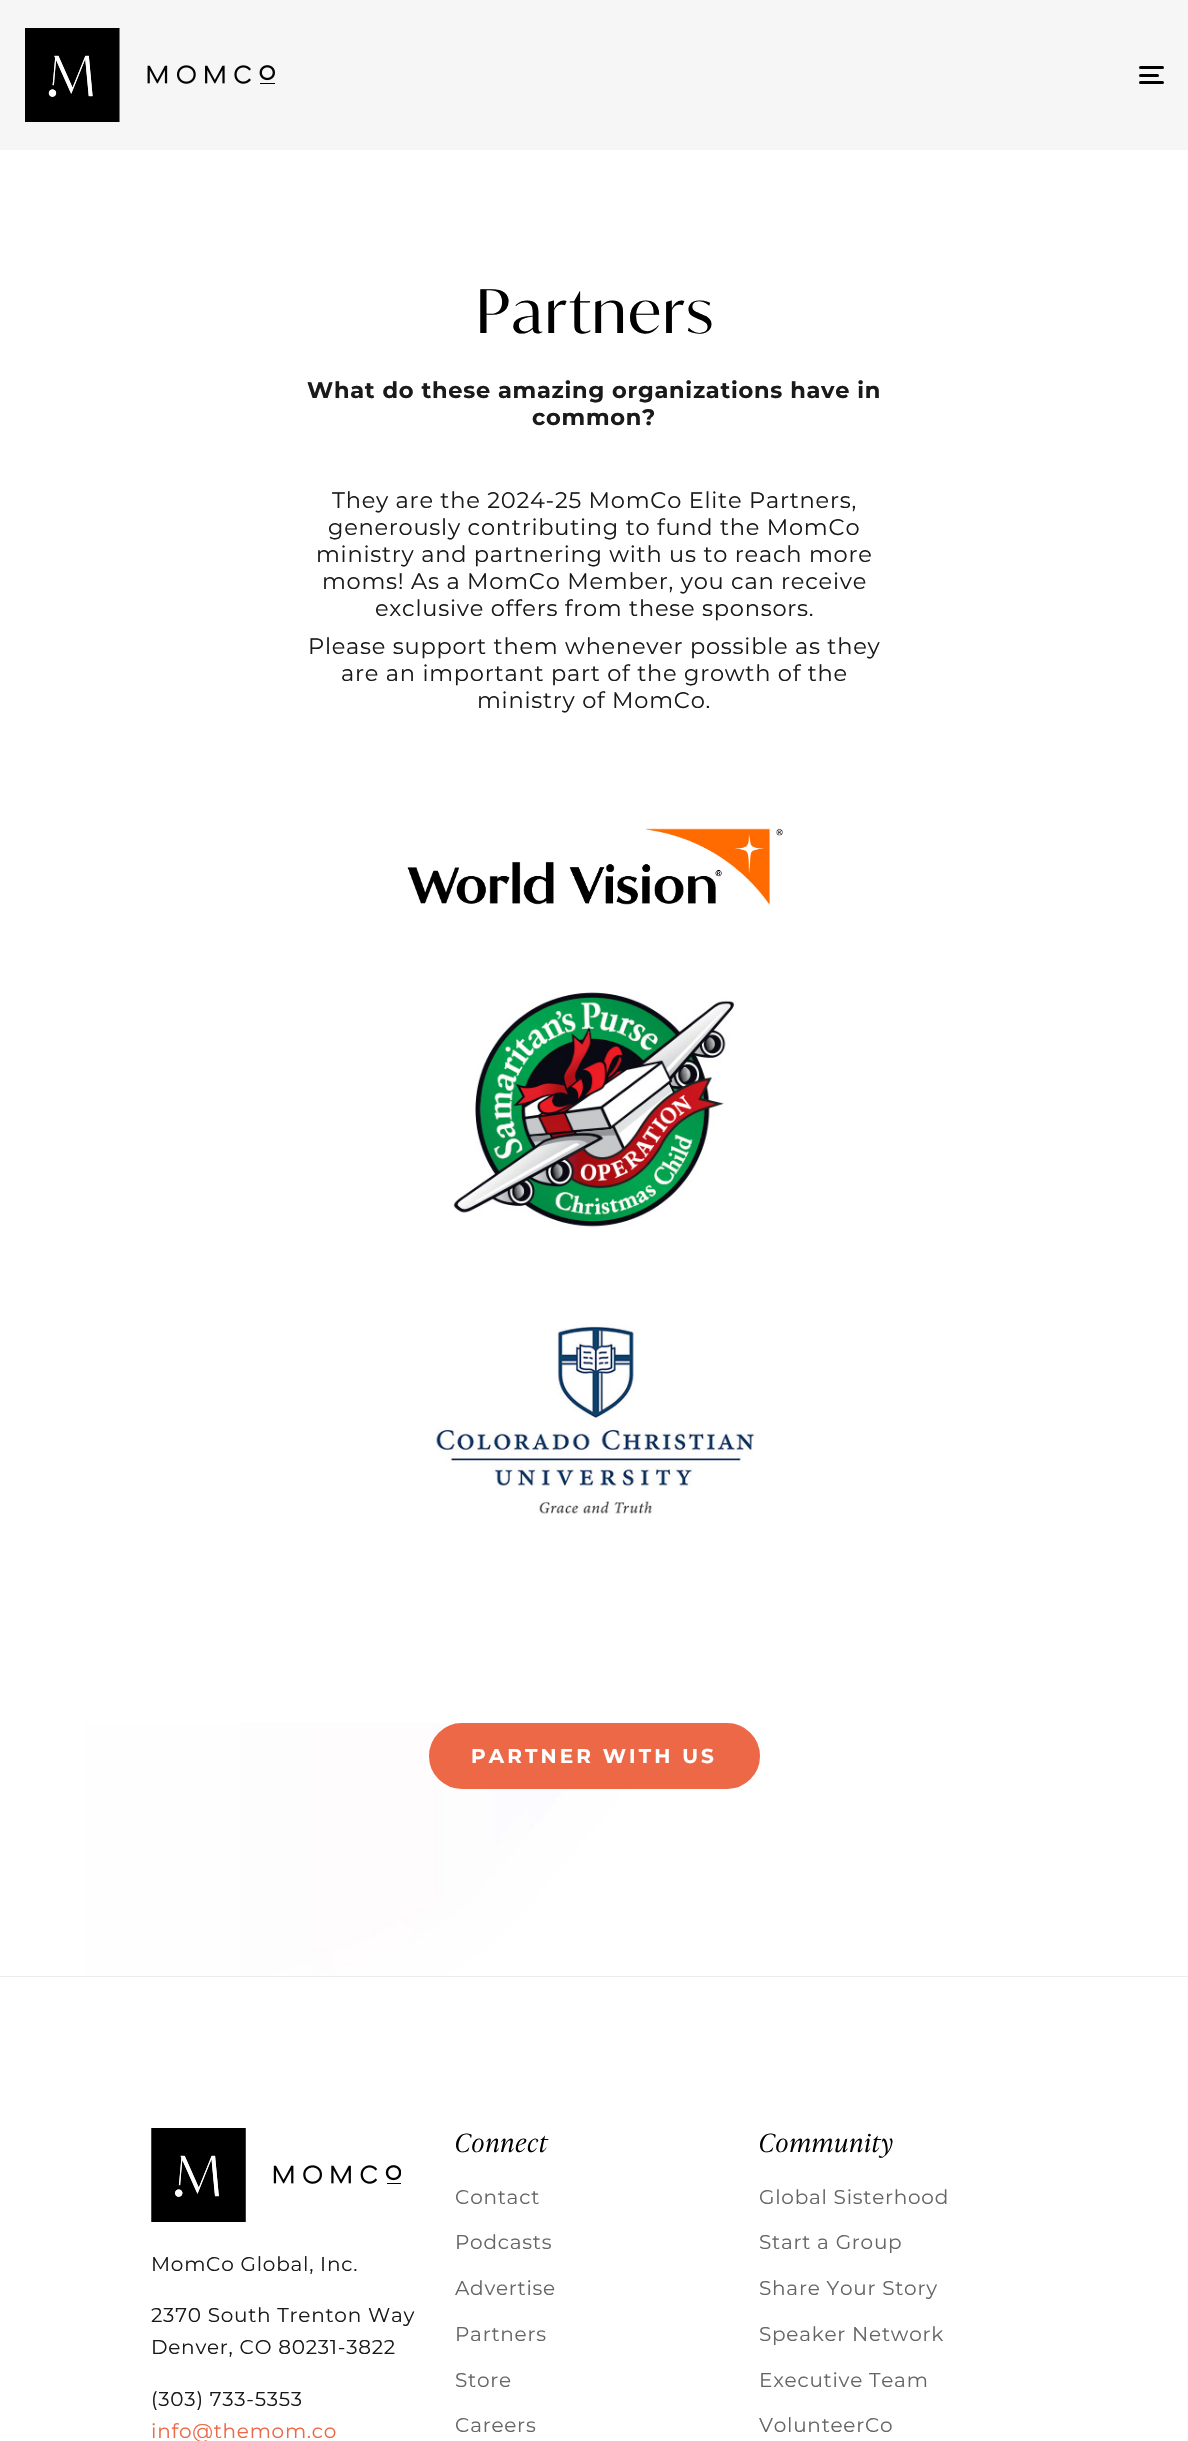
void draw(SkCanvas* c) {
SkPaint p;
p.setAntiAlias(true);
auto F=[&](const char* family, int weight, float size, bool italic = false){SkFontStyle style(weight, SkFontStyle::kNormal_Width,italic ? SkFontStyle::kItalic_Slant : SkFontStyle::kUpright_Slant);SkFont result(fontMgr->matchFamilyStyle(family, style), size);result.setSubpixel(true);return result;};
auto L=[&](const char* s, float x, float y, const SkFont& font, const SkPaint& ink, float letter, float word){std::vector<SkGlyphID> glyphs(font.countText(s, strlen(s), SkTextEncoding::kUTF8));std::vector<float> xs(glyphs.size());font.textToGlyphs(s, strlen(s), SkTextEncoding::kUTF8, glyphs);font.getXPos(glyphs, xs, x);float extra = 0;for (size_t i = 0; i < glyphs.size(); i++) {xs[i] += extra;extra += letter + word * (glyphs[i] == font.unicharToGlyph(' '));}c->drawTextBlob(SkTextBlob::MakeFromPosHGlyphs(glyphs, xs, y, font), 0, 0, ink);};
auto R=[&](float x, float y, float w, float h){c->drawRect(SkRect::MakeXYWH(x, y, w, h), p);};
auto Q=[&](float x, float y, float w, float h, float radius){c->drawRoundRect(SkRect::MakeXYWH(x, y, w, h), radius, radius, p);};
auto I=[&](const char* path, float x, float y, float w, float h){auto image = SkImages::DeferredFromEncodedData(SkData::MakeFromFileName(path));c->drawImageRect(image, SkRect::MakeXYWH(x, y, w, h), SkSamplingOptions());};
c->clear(0xffffffff);
p.setColor(0xfff6f6f6);
R(0,0,1188,150);
I("1.png",25,28,250,94);
p.setColor(0xff000000);
Q(1139,66,25,3,1.5);
Q(1139,74,20,3,1.5);
Q(1139,81,25,3,1.5);
p.setColor(0xffe6e6e6);
R(0,1976,1188,1);
I("2.png",0,1723,1188,254);
auto f1 = F("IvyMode",400,60);
p.setColor(0xff000000);
L("Partners",476,333,f1,p,2,0);
auto f2 = F("Montserrat",700,22.5);
p.setColor(0xff1a1a1a);
L("What do these amazing organizations have in",307,398,f2,p,.75,0);
L("common?",532,425,f2,p,.75,0);
auto f3 = F("Montserrat",400,22.5);
L("They are the 2024-25 MomCo Elite Partners,",332,508,f3,p,.75,0);
L("generously contributing to fund the MomCo",328,535,f3,p,.75,0);
L("ministry and partnering with us to reach more",316,562,f3,p,.75,0);
L("moms! As a MomCo Member, you can receive",322,589,f3,p,.75,0);
L("exclusive offers from these sponsors.",375,616,f3,p,.75,0);
L("Please support them whenever possible as they",308,654,f3,p,.75,0);
L("are an important part of the growth of the",341,681,f3,p,.75,0);
L("ministry of MomCo.",477,708,f3,p,.75,0);
I("3.png",407,828,376,77);
I("4.png",453,992,281,235);
I("5.png",431,1323,329,191);
p.setColor(0xffed6847);
c->drawRoundRect(SkRect::MakeXYWH(430.5,1724.5,328,63),31.5,31.5,p);
p.setStroke(true);
p.setStrokeWidth(3);
c->drawRoundRect(SkRect::MakeXYWH(430.5,1724.5,328,63),31.5,31.5,p);
auto f4 = F("Montserrat",700,20);
p.setStroke(false);
p.setColor(0xffffffff);
L("PARTNER WITH US",471,1763,f4,p,3.1,0);
I("6.png",151,2128,250,94);
auto f5 = F("Montserrat",400,20);
p.setColor(0xff1a1a1a);
L("MomCo Global, Inc.",151,2271,f5,p,.75,0);
L("2370 South Trenton Way",151,2322,f5,p,.75,0);
L("Denver, CO 80231-3822",151,2354,f5,p,.75,0);
L("(303) 733-5353",151,2406,f5,p,.75,0);
p.setColor(0xffed6847);
L("info@themom.co",151,2438,f5,p,.75,0);
auto f6 = F("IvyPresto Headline",300,25,true);
p.setColor(0xff000000);
L("Connect",455,2152,f6,p,1.6,0);
p.setColor(0xff666666);
L("Contact",455,2204,f5,p,.75,0);
L("Podcasts",455,2249,f5,p,.75,0);
L("Advertise",455,2295,f5,p,.75,0);
L("Partners",455,2341,f5,p,.75,0);
L("Store",455,2387,f5,p,.75,0);
L("Careers",455,2432,f5,p,.75,0);
p.setColor(0xff000000);
L("Community",759,2152,f6,p,1.6,0);
p.setColor(0xff666666);
L("Global Sisterhood",759,2204,f5,p,.75,0);
L("Start a Group",759,2249,f5,p,.75,0);
L("Share Your Story",759,2295,f5,p,.75,0);
L("Speaker Network",759,2341,f5,p,.75,0);
L("Executive Team",759,2387,f5,p,.75,0);
L("VolunteerCo",759,2432,f5,p,.75,0);
}
